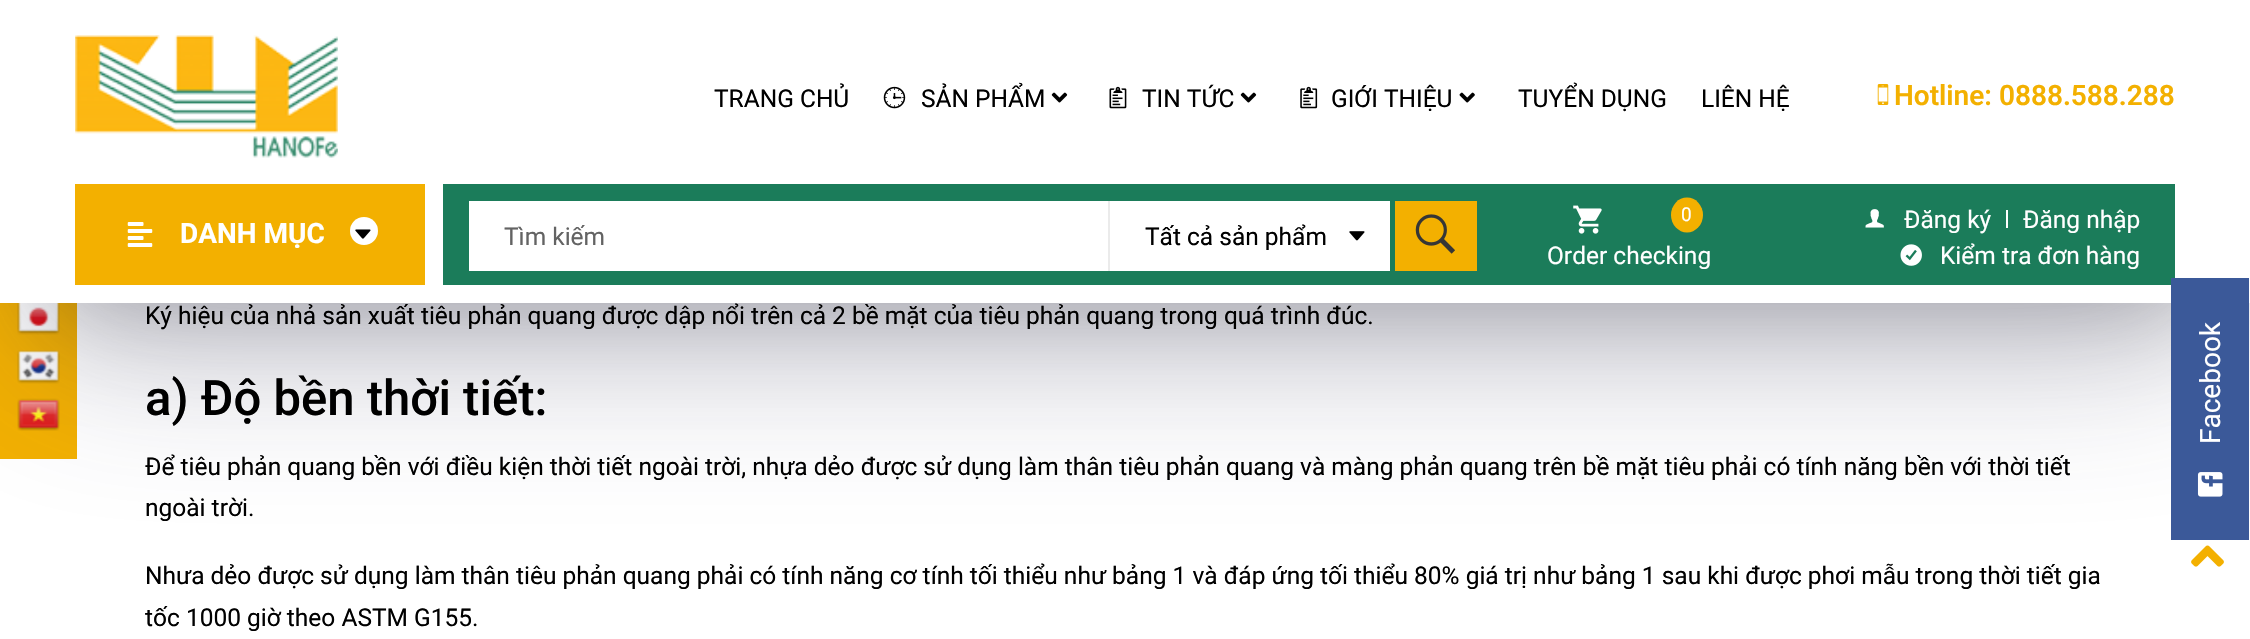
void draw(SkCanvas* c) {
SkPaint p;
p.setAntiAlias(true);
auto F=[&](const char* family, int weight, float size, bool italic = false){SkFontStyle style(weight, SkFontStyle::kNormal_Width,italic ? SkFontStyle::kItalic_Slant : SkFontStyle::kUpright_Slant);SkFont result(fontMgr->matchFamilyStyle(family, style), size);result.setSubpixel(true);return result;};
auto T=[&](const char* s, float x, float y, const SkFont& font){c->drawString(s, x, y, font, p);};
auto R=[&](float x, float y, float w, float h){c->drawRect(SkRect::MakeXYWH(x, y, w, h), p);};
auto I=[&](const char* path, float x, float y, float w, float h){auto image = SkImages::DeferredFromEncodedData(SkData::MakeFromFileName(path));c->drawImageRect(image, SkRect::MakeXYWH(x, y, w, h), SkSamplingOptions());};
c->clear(0xffffffff);
p.setColor(0xfff3b000);
R(0,303,77,156);
I("15.png",17,303,43,32);
I("16.png",17,350,43,34);
I("17.png",17,398,43,33);
p.setColor(0x4d000000);
p.setMaskFilter(SkMaskFilter::MakeBlur(kNormal_SkBlurStyle, 52.5));
c->drawRect(SkRect::MakeXYWH(53,105,2145,198),p);
p.setMaskFilter(nullptr);
I("19.png",2191,545,33,22);
p.setColor(0x4032325d);
p.setMaskFilter(SkMaskFilter::MakeBlur(kNormal_SkBlurStyle, 87.5));
c->drawRect(SkRect::MakeXYWH(35,123,2181,232),p);
p.setMaskFilter(nullptr);
p.setColor(0xffffffff);
R(0,0,2250,303);
I("1.png",75,35,263,123);
auto f1 = F("Roboto",400,24.5);
p.setColor(0xff000000);
T("TRANG CHỦ",714,107,f1);
I("2.png",883,86,23,23);
T("SẢN PHẨM",921,107,f1);
I("3.png",1051,92,17,11);
I("4.png",1109,86,18,23);
T("TIN TỨC",1142,107,f1);
I("3.png",1240,92,17,11);
I("5.png",1300,86,18,23);
T("GIỚI THIỆU",1331,107,f1);
I("6.png",1459,92,16,11);
T("TUYỂN DỤNG",1518,107,f1);
T("LIÊN HỆ",1701,107,f1);
I("7.png",1877,84,12,21);
auto f2 = F("Roboto",600,28);
p.setColor(0xfff3b000);
T("Hotline: 0888.588.288",1894,105,f2);
R(75,184,350,101);
I("8.png",127,222,26,25);
auto f3 = F("Roboto",700,28);
p.setColor(0xffffffff);
T("DANH MỤC",180,243,f3);
c->drawCircle(364,231,14,p);
I("9.png",355,229,16,10);
p.setColor(0xff1b7c5a);
R(443,184,1732,101);
p.setColor(0xffffffff);
R(469,201,639,70);
p.setColor(0xff636363);
T("Tìm kiếm",504,245,f1);
p.setColor(0xffffffff);
R(1110,201,280,70);
p.setColor(0xffebebeb);
R(1108,201,2,70);
p.setColor(0xff000000);
T("Tất cả sản phẩm",1145,245,f1);
I("10.png",1349,231,16,10);
p.setColor(0xfff3b000);
R(1395,201,82,70);
I("11.png",1415,214,40,40);
I("12.png",1573,205,29,29);
c->drawOval(SkRect::MakeXYWH(1671,197.5,32,35),p);
auto f4 = F("Roboto",400,19);
p.setColor(0xffffffff);
T("0",1681,221,f4);
T("Order checking",1547,264,f1);
I("13.png",1865,209,19,19);
T("Đăng ký",1904,228,f1);
R(2006,210,2,18);
T("Đăng nhập",2023,228,f1);
I("14.png",1900,244,22,22);
T("Kiểm tra đơn hàng",1940,264,f1);
p.setColor(0xff000000);
T("Ký hiệu của nhả sản xuất tiêu phản quang được dập nổi trên cả 2 bề mặt của tiêu phản quang trong quá trình đúc.",145,324,f1);
auto f5 = F("Roboto",500,49);
T("a) Độ bền thời tiết:",145,415,f5);
T("Để tiêu phản quang bền với điều kiện thời tiết ngoài trời, nhựa dẻo được sử dụng làm thân tiêu phản quang và màng phản quang trên bề mặt tiêu phải có tính năng bền với thời tiết",145,475,f1);
T("ngoài trời.",145,516,f1);
T("Nhưa dẻo được sử dụng làm thân tiêu phản quang phải có tính năng cơ tính tối thiểu như bảng 1 và đáp ứng tối thiểu 80% giá trị như bảng 1 sau khi được phơi mẫu trong thời tiết gia",145,584,f1);
T("tốc 1000 giờ theo ASTM G155.",145,626,f1);
p.setColor(0xff3b5999);
R(2171,278,78,262);
auto f6 = F("Roboto",400,28);
p.setColor(0xffffffff);
c->save();
c->rotate(-90,2220,444);
T("Facebook",2220,444,f6);
c->restore();
I("18.png",2197,472,26,25);
}
